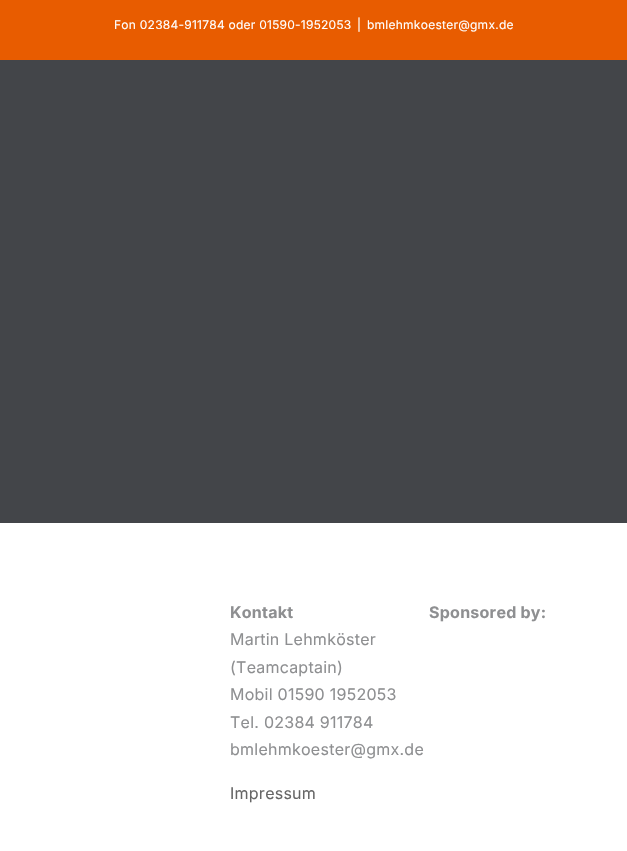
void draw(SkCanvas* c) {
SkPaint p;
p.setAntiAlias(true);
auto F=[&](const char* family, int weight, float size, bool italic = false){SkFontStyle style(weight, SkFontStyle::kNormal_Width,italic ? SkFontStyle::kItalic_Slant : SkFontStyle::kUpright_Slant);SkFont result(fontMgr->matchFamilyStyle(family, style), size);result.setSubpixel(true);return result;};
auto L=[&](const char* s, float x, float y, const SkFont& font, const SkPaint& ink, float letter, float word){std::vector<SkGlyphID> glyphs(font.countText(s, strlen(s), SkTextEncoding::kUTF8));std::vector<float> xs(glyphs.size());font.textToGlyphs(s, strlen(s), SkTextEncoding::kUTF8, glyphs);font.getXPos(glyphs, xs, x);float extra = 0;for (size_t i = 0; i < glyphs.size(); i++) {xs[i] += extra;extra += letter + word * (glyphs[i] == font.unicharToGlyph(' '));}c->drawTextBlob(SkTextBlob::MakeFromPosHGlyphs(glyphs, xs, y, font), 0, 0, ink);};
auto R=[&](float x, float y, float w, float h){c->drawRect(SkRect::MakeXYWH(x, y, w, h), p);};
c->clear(0xff434549);
p.setColor(0xffe85c00);
R(0,0,627,60);
auto f1 = F("Inter",400,12);
p.setColor(0xffffffff);
L("Fon 02384-911784 oder 01590-1952053",114,29,f1,p,.25,0);
L("|",357,29,f1,p,.25,0);
L("bmlehmkoester@gmx.de",367,29,f1,p,.25,0);
R(0,523,627,328);
auto f2 = F("Inter",700,16);
p.setColor(0xff8e8f91);
L("Kontakt",230,618,f2,p,.25,0);
auto f3 = F("Inter",400,16);
L("Martin Lehmköster",230,645,f3,p,.25,0);
L("(Teamcaptain)",230,673,f3,p,.25,0);
L("Mobil 01590 1952053",230,700,f3,p,.25,0);
L("Tel. 02384 911784",230,728,f3,p,.25,0);
L("bmlehmkoester@gmx.de",230,755,f3,p,.25,0);
p.setColor(0xff666666);
L("Impressum",230,799,f3,p,.25,0);
p.setColor(0xff8e8f91);
L("Sponsored by:",429,618,f2,p,.25,0);
}
